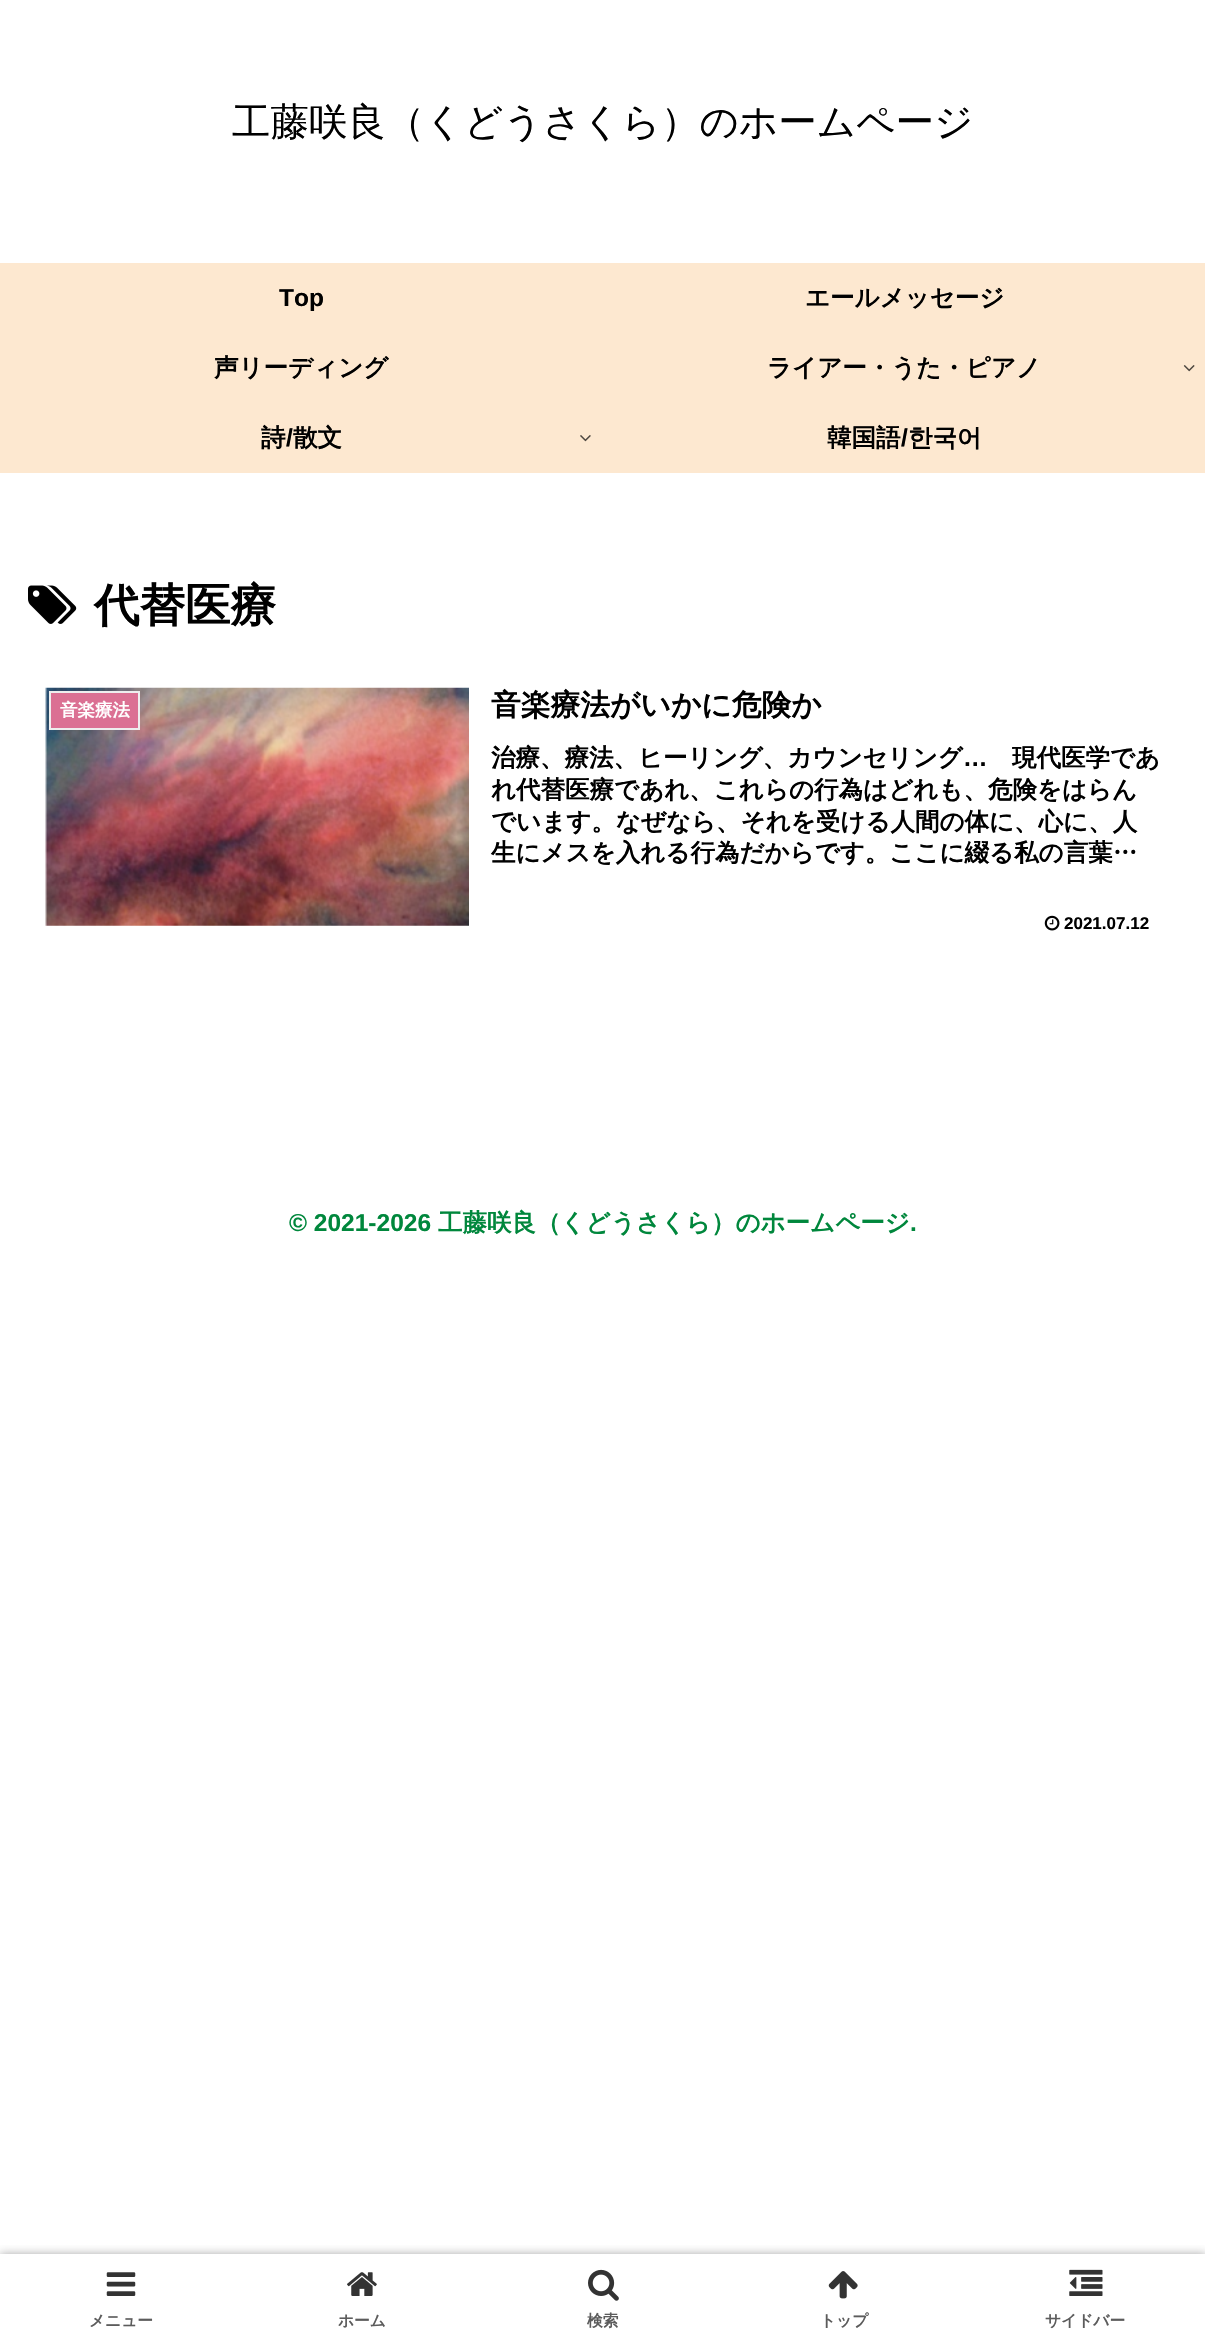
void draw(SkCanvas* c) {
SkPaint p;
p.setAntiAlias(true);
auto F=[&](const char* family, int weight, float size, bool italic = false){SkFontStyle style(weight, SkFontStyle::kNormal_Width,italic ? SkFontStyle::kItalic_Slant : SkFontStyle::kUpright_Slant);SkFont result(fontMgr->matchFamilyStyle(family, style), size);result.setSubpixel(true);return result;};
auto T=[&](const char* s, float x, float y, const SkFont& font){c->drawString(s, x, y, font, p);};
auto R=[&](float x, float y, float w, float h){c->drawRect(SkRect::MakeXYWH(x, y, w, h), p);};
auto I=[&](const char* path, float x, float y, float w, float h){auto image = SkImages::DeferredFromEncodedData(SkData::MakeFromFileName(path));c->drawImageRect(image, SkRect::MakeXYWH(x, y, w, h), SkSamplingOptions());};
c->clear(0xffffffff);
auto f1 = F("WenQuanYi Zen Hei",500,38.5);
p.setColor(0xff000000);
T("工藤咲良（くどうさくら）のホームページ",232,135,f1);
p.setColor(0xfffde8d0);
R(0,263,1205,210);
auto f2 = F("Liberation Sans",700,24.5);
p.setColor(0xff000000);
T("Top",279,306,f2);
auto f3 = F("WenQuanYi Zen Hei",700,24.5);
T("エールメッセージ",805,306,f3);
T("声リーディング",214,376,f3);
T("ライアー・うた・ピアノ",767,376,f3);
I("1.png",1183,365,12,7);
T("詩",261,446,f3);
T("/",286,446,f2);
T("散文",293,446,f3);
I("2.png",580,435,11,7);
T("韓国語",827,446,f3);
T("/",901,446,f2);
T("한국어",908,446,f3);
I("3.png",28,585,49,39);
auto f4 = F("WenQuanYi Zen Hei",700,45.5);
T("代替医療",94,621,f4);
I("4.png",45,687,424,239);
p.setColor(0xffdb7093);
c->drawRect(SkRect::MakeXYWH(50,692,89,37),p);
p.setStroke(true);
p.setStrokeWidth(2);
p.setColor(0xffeeeeee);
c->drawRect(SkRect::MakeXYWH(50,692,89,37),p);
auto f5 = F("WenQuanYi Zen Hei",700,17.5);
p.setStroke(false);
p.setColor(0xffffffff);
T("音楽療法",60,716,f5);
auto f6 = F("WenQuanYi Zen Hei",700,29.75);
p.setColor(0xff000000);
T("音楽療法がいかに危険か",491,715,f6);
T("治療、療法、ヒーリング、カウンセリング",491,766,f3);
T("…",963,766,f2);
T("現代医学であ",1012,766,f3);
T("れ代替医療であれ、これらの行為はどれも、危険をはらん",491,798,f3);
T("でいます。なぜなら、それを受ける人間の体に、心に、人",491,830,f3);
T("生にメスを入れる行為だからです。ここに綴る私の言葉…",491,861,f3);
I("5.png",1044,915,16,16);
auto f7 = F("Liberation Sans",700,17);
T("2021.07.12",1064,929,f7);
p.setColor(0xff00873c);
T("© 2021-2026",289,1231,f2);
T("工藤咲良（くどうさくら）のホームページ",438,1231,f3);
T(".",910,1231,f2);
c->save();
c->clipRect(SkRect::MakeXYWH(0,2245,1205,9));
p.setColor(0xffa9a9a9);
p.setMaskFilter(SkMaskFilter::MakeBlur(kNormal_SkBlurStyle, 4.5));
c->drawRect(SkRect::MakeXYWH(0,2254,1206,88),p);
p.setMaskFilter(nullptr);
c->restore();
I("6.png",106,2272,30,24);
auto f8 = F("WenQuanYi Zen Hei",700,15.75);
p.setColor(0xff5c5c5c);
T("メニュー",89,2326,f8);
I("7.png",347,2272,30,24);
T("ホーム",338,2326,f8);
I("8.png",588,2269,31,32);
T("検索",587,2326,f8);
I("9.png",828,2271,30,28);
T("トップ",820,2326,f8);
I("10.png",1069,2269,34,27);
T("サイドバー",1045,2326,f8);
}
